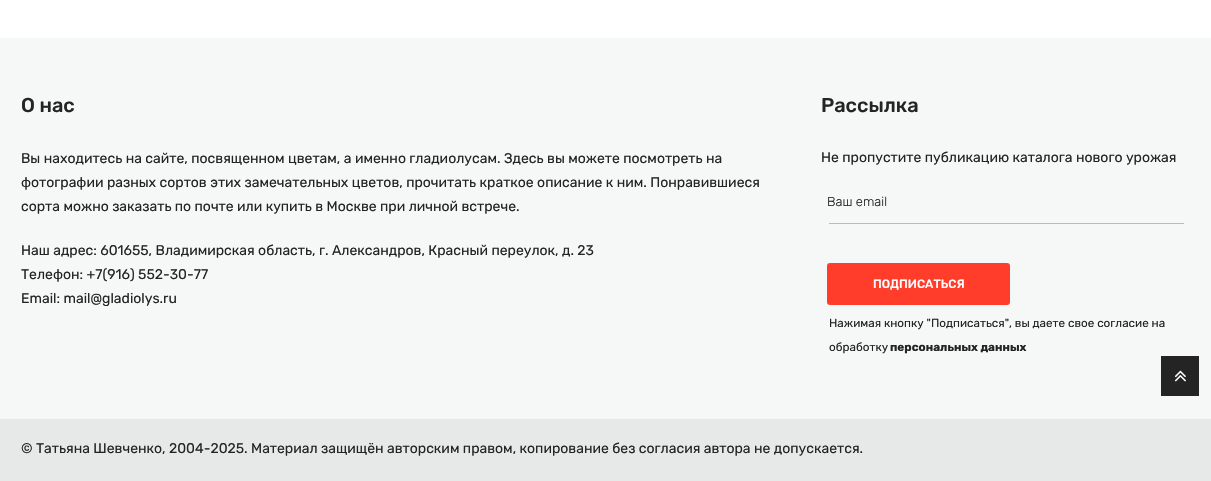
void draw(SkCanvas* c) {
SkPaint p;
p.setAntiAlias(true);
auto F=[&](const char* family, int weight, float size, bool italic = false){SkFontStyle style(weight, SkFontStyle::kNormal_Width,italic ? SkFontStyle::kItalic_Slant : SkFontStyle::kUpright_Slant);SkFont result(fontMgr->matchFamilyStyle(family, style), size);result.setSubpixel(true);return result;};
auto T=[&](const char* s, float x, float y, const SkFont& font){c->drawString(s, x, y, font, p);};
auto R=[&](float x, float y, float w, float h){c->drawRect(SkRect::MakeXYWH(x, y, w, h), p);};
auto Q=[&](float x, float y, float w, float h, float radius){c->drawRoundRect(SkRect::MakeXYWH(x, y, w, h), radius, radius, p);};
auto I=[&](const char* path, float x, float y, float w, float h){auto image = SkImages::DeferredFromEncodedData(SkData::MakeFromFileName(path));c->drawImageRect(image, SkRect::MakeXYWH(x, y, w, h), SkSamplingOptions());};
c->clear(0xffffffff);
p.setColor(0xfff6f7f7);
R(0,38,1211,381);
auto f1 = F("Rubik",500,20);
p.setColor(0xff242424);
T("О нас",21,112,f1);
auto f2 = F("Rubik",400,14);
T("Вы находитесь на сайте, посвященном цветам, а именно гладиолусам. Здесь вы можете посмотреть на",21,163,f2);
T("фотографии разных сортов этих замечательных цветов, прочитать краткое описание к ним. Понравившиеся",21,187,f2);
T("сорта можно заказать по почте или купить в Москве при личной встрече.",21,211,f2);
T("Наш адрес: 601655, Владимирская область, г. Александров, Красный переулок, д. 23",21,255,f2);
T("Телефон: +7(916) 552-30-77",21,279,f2);
T("Email: mail@gladiolys.ru",21,303,f2);
T("Рассылка",821,112,f1);
T("Не пропустите публикацию каталога нового урожая",821,162,f2);
p.setColor(0xffbbbbbb);
R(829,223,355,1);
auto f3 = F("Rubik",300,13);
p.setColor(0xff242424);
T("Ваш email",827,206,f3);
p.setColor(0xffff3d2a);
Q(827,263,183,42,3);
auto f4 = F("Rubik",500,12);
p.setColor(0xffffffff);
T("ПОДПИСАТЬСЯ",873,288,f4);
auto f5 = F("Rubik",400,11.7);
p.setColor(0xff242424);
T("Нажимая кнопку \"Подписаться\", вы даете свое согласие на",829,327,f5);
T("обработку",829,351,f5);
auto f6 = F("Rubik",700,11.7);
T("персональных данных",890,351,f6);
p.setColor(0xffe7e8e8);
R(0,419,1211,62);
p.setColor(0xff242424);
T("© Татьяна Шевченко, 2004-2025. Материал защищён авторским правом, копирование без согласия автора не допускается.",21,453,f2);
R(1161,356,38,40);
I("1.png",1174,370,12,12);
}
